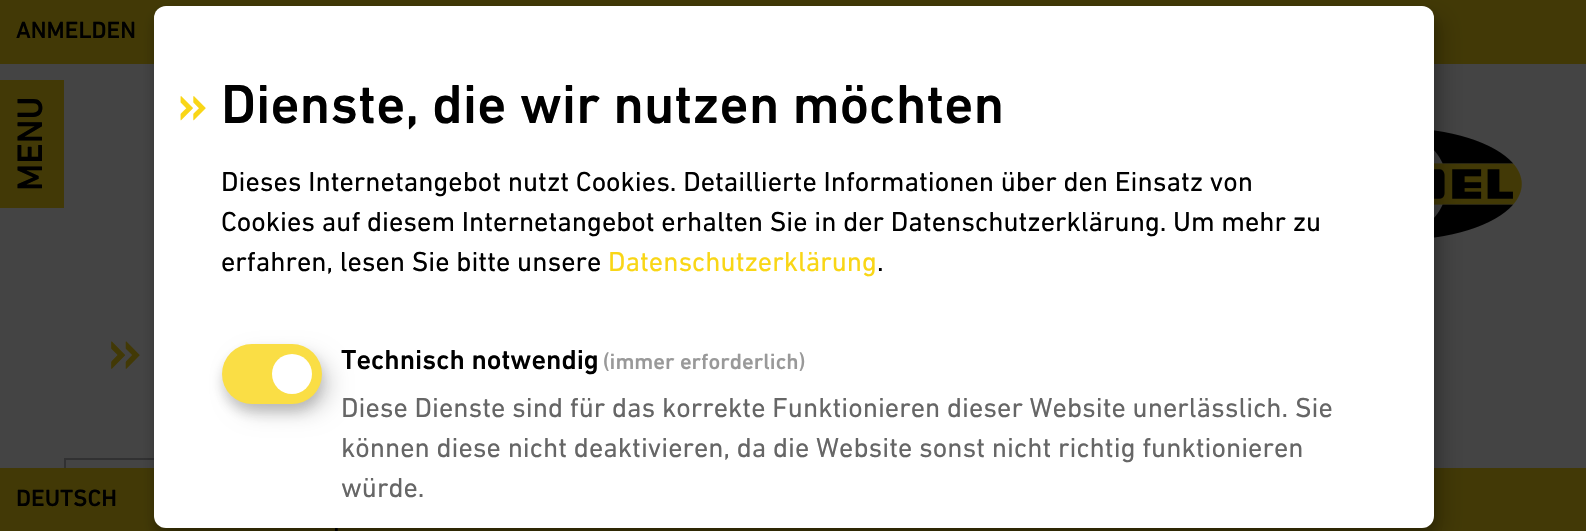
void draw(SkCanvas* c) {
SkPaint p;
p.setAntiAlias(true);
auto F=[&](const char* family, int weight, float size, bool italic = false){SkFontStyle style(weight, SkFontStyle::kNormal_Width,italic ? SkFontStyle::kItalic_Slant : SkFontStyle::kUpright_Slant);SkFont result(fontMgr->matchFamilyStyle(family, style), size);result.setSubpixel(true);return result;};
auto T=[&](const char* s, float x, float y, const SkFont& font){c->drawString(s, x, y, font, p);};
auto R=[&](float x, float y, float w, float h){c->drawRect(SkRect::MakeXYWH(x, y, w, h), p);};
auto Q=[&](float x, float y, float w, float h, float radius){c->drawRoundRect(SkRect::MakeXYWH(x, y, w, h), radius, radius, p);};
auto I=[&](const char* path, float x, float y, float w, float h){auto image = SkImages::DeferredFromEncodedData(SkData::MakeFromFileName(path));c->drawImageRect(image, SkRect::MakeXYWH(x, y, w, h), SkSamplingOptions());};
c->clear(0xff444444);
p.setColor(0xff423906);
R(0,0,1586,64);
auto f1 = F("DIN Next",500,24);
p.setColor(0xff000000);
T("ANMELDEN",16,38,f1);
I("1.png",1434,130,88,108);
auto f2 = F("DIN Next",500,64);
p.setColor(0xff423906);
T("»",107,372,f2);
p.setStroke(true);
p.setStrokeWidth(2);
p.setColor(0xff313132);
c->drawRect(SkRect::MakeXYWH(65,459,780,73),p);
p.setStroke(false);
p.setColor(0xff423906);
R(0,468,1586,63);
p.setColor(0xff000000);
T("DEUTSCH",16,506,f1);
p.setColor(0xff423906);
R(0,80,64,128);
auto f3 = F("DIN Next",500,36);
p.setColor(0xff000000);
c->save();
c->rotate(-90,42,191);
T("MENU",42,191,f3);
c->restore();
p.setColor(0x30000000);
p.setMaskFilter(SkMaskFilter::MakeBlur(kNormal_SkBlurStyle, 10));
c->drawRoundRect(SkRect::MakeXYWH(164,16,1280,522),12,12,p);
p.setMaskFilter(nullptr);
p.setColor(0x33000000);
p.setMaskFilter(SkMaskFilter::MakeBlur(kNormal_SkBlurStyle, 6));
c->drawRoundRect(SkRect::MakeXYWH(154,14,1280,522),12,12,p);
p.setMaskFilter(nullptr);
p.setColor(0xffffffff);
Q(154,6,1280,522,12);
auto f4 = F("DIN Next",500,56);
p.setColor(0xfff9d616);
T("»",177,123,f4);
p.setColor(0xff000000);
T("Dienste, die wir nutzen möchten",221,123,f4);
auto f5 = F("DIN Next",400,28);
T("Dieses Internetangebot nutzt Cookies. Detaillierte Informationen über den Einsatz von",221,191,f5);
T("Cookies auf diesem Internetangebot erhalten Sie in der Datenschutzerklärung. Um mehr zu",221,231,f5);
T("erfahren, lesen Sie bitte unsere",221,271,f5);
p.setColor(0xfff9d616);
T("Datenschutzerklärung",608,271,f5);
p.setColor(0xff000000);
T(".",877,271,f5);
p.setColor(0x26000000);
p.setMaskFilter(SkMaskFilter::MakeBlur(kNormal_SkBlurStyle, 10));
c->drawRoundRect(SkRect::MakeXYWH(232,354,100,60),30,30,p);
p.setMaskFilter(nullptr);
p.setColor(0x33333333);
p.setMaskFilter(SkMaskFilter::MakeBlur(kNormal_SkBlurStyle, 6));
c->drawRoundRect(SkRect::MakeXYWH(222,352,100,60),30,30,p);
p.setMaskFilter(nullptr);
p.setColor(0xfffade45);
Q(222,344,100,60,30);
p.setColor(0xffffffff);
c->drawCircle(292,374,20,p);
auto f6 = F("DIN Next",500,28);
p.setColor(0xff000000);
T("Technisch notwendig",341,369,f6);
auto f7 = F("DIN Next",500,22.5);
p.setColor(0xff999999);
T("(immer erforderlich)",603,369,f7);
p.setColor(0xff666666);
T("Diese Dienste sind für das korrekte Funktionieren dieser Website unerlässlich. Sie",341,417,f5);
T("können diese nicht deaktivieren, da die Website sonst nicht richtig funktionieren",341,457,f5);
T("würde.",341,497,f5);
p.setColor(0xff000000);
T(".",333,531,f5);
}
